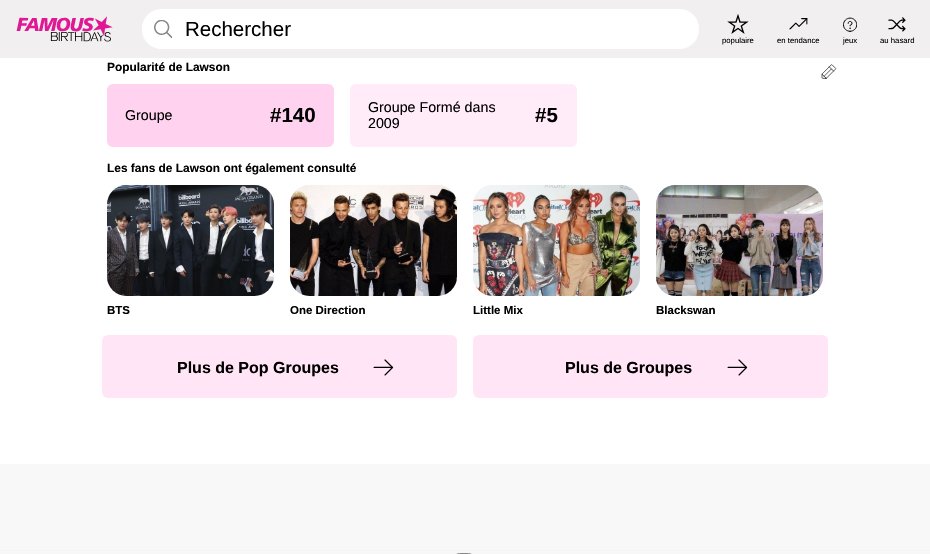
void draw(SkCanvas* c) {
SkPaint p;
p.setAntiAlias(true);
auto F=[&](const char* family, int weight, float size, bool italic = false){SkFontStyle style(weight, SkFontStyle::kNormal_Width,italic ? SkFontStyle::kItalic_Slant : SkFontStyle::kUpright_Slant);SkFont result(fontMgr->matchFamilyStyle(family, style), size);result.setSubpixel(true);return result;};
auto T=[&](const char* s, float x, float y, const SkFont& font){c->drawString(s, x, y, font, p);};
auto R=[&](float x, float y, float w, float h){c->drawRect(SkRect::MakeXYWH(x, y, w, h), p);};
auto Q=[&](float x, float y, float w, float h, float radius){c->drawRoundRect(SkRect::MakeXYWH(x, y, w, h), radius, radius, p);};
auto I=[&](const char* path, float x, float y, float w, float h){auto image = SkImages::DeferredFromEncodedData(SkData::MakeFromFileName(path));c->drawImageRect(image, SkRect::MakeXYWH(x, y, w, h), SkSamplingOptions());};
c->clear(0xffffffff);
p.setColor(0xfff8f8f8);
R(0,464,930,86);
R(0,551,930,1);
p.setColor(0xfff1efef);
R(0,0,930,58);
I("1.png",16,16,97,26);
p.setColor(0xffffffff);
c->drawRoundRect(SkRect::MakeXYWH(142.5,9.5,556,39),18.5,18.5,p);
p.setStroke(true);
p.setStrokeWidth(1);
c->drawRoundRect(SkRect::MakeXYWH(142.5,9.5,556,39),18.5,18.5,p);
I("2.png",154,20,18,18);
auto f1 = F("Liberation Sans",400,20.5);
p.setStroke(false);
p.setColor(0xff000000);
T("Rechercher",185,36,f1);
I("3.png",727,14,22,20);
auto f2 = F("Liberation Sans",400,7.75);
T("populaire",722,43,f2);
I("4.png",789,18,19,12);
T("en tendance",777,43,f2);
I("5.png",843,17,14,15);
T("jeux",843,43,f2);
I("6.png",888,17,18,15);
T("au hasard",880,43,f2);
auto f3 = F("Liberation Sans",700,11.9);
T("Popularité de Lawson",107,71,f3);
p.setColor(0xffffd2ef);
Q(107,84,227,63,6);
auto f4 = F("Liberation Sans",400,14.25);
p.setColor(0xff000000);
T("Groupe",125,120,f4);
auto f5 = F("Liberation Sans",700,20.5);
T("#140",270,122,f5);
p.setColor(0xffffecf8);
Q(350,84,227,63,6);
p.setColor(0xff000000);
T("Groupe Formé dans",368,112,f4);
T("2009",368,128,f4);
T("#5",535,122,f5);
I("7.png",821,64,16,15);
T("Les fans de Lawson ont également consulté",107,172,f3);
I("8.png",107,185,167,111);
auto f6 = F("Liberation Sans",700,11.5);
T("BTS",107,314,f6);
I("9.png",290,185,167,111);
T("One Direction",290,314,f6);
I("10.png",473,185,167,111);
T("Little Mix",473,314,f6);
I("11.png",656,185,167,111);
T("Blackswan",656,314,f6);
p.setColor(0xffffe5f5);
Q(102,335,355,63,6);
auto f7 = F("Liberation Sans",700,16);
p.setColor(0xff000000);
T("Plus de Pop Groupes",177,373,f7);
I("12.png",373,359,21,17);
p.setColor(0xffffe5f5);
Q(473,335,355,63,6);
p.setColor(0xff000000);
T("Plus de Groupes",565,373,f7);
I("12.png",727,359,21,17);
p.setColor(0xfff5f5f5);
R(0,550,930,1);
p.setColor(0xfff7f7f7);
R(0,552,930,2);
p.setStroke(true);
p.setColor(0xff888888);
c->drawRoundRect(SkRect::MakeXYWH(453.5,553.5,21,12),10.5,10.5,p);
}
